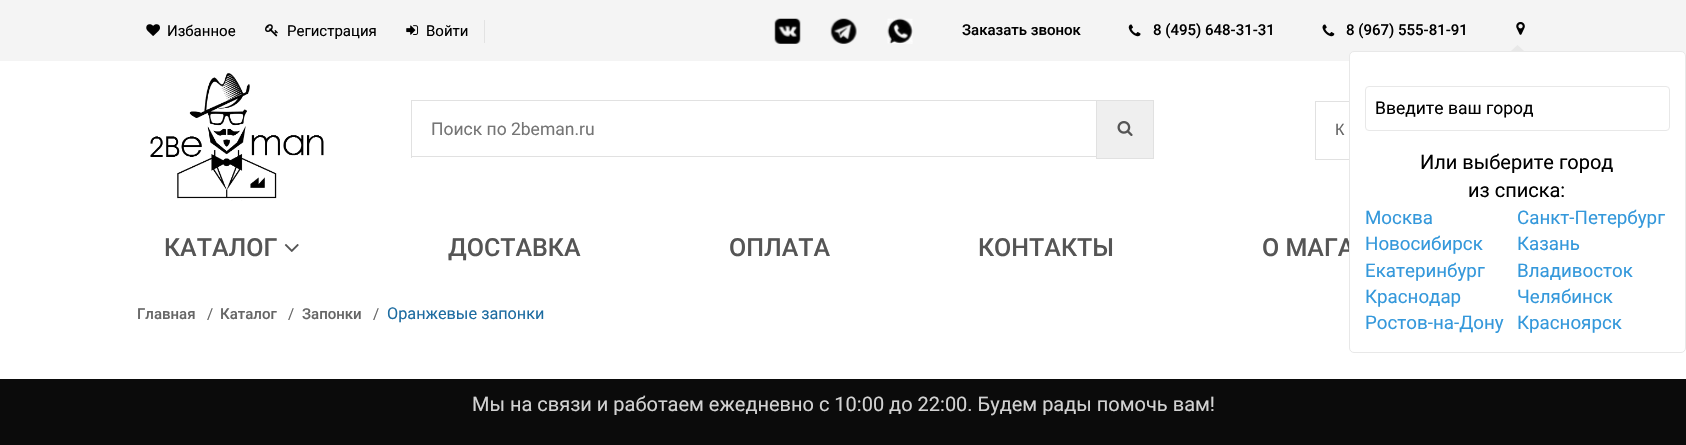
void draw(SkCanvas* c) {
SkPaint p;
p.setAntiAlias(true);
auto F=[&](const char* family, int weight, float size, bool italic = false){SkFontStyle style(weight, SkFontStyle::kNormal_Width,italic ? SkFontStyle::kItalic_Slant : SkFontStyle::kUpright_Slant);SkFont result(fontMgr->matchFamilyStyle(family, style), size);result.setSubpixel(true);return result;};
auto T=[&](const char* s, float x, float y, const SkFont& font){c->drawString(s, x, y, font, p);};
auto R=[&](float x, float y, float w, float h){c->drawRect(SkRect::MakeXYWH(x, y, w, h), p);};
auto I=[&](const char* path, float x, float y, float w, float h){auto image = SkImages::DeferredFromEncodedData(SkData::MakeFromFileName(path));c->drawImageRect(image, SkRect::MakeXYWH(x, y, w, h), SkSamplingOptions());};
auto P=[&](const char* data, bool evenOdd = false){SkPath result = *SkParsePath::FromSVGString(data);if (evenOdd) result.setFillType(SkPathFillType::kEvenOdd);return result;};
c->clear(0xffffffff);
p.setColor(0xfff4f4f4);
R(0,0,1686,61);
I("1.png",146,24,14,12);
auto f1 = F("Roboto",400,15);
p.setColor(0xff000000);
T("Избанное",167,36,f1);
I("2.png",265,24,13,13);
T("Регистрация",287,36,f1);
p.setColor(0xffe2e2e2);
R(484,20,1,23);
I("3.png",406,25,13,10);
p.setColor(0xff000000);
T("Войти",426,36,f1);
I("4.png",774,18,27,26);
I("5.png",830,18,27,26);
I("6.png",887,18,26,26);
auto f2 = F("Roboto",500,15);
T("Заказать звонок",962,35,f2);
I("7.png",1128,24,13,13);
T("8 (495) 648-31-31",1153,35,f2);
I("8.png",1322,24,13,13);
T("8 (967) 555-81-91",1346,35,f2);
I("9.png",1516,22,9,13);
p.setColor(0xffe8e8e8);
c->drawPath(P("M1524 51h-13l6.5-6z"),p);
p.setStroke(true);
p.setStrokeWidth(1);
p.setColor(0xffe1e1e1);
c->drawRect(SkRect::MakeXYWH(1315.5,101.5,240,58),p);
auto f3 = F("Roboto",500,25);
p.setStroke(false);
p.setColor(0xff555555);
T("О МАГА",1262,256,f3);
p.setColor(0xffffffff);
c->drawRoundRect(SkRect::MakeXYWH(1349.5,51.5,336,301),4.5,4.5,p);
p.setStroke(true);
p.setColor(0xffe8e8e8);
c->drawRoundRect(SkRect::MakeXYWH(1349.5,51.5,336,301),4.5,4.5,p);
c->drawRoundRect(SkRect::MakeXYWH(1365.5,86.5,304,44),3.5,3.5,p);
auto f4 = F("Roboto",400,17.5);
p.setStroke(false);
p.setColor(0xff000000);
T("Введите ваш город",1375,114,f4);
auto f5 = F("Roboto",400,20);
T("Или выберите город",1420,169,f5);
T("из списка:",1468,197,f5);
auto f6 = F("Roboto",400,18.75);
p.setColor(0xff3498db);
T("Москва",1365,224,f6);
T("Санкт-Петербург",1517,224,f6);
T("Новосибирск",1365,250,f6);
T("Казань",1517,250,f6);
T("Екатеринбург",1365,277,f6);
T("Владивосток",1517,277,f6);
T("Краснодар",1365,303,f6);
T("Челябинск",1517,303,f6);
T("Ростов-на-Дону",1365,329,f6);
T("Красноярск",1517,329,f6);
I("10.png",150,73,174,128);
p.setColor(0xffe1e1e1);
R(411,100,685,1);
R(411,156,685,1);
R(411,100,1,58);
p.setColor(0xff757575);
T("Поиск по 2beman.ru",431,135,f4);
p.setColor(0xffefefef);
c->drawRect(SkRect::MakeXYWH(1096.5,100.5,57,58),p);
p.setStroke(true);
p.setColor(0xffe1e1e1);
c->drawRect(SkRect::MakeXYWH(1096.5,100.5,57,58),p);
I("11.png",1117,121,16,15);
auto f7 = F("Liberation Sans",400,16.25);
p.setStroke(false);
p.setColor(0xff666666);
T("К",1335,135,f7);
p.setColor(0xff555555);
T("КАТАЛОГ",164,256,f3);
I("12.png",284,244,15,8);
T("ДОСТАВКА",448,256,f3);
T("ОПЛАТА",729,256,f3);
T("КОНТАКТЫ",978,256,f3);
p.setColor(0xff666666);
T("Главная",137,319,f2);
T("/",207,319,f1);
T("Каталог",220,319,f2);
T("/",288,319,f1);
T("Запонки",302,319,f2);
T("/",373,319,f1);
auto f8 = F("Roboto",400,16.25);
p.setColor(0xff1d6ca1);
T("Оранжевые запонки",387,319,f8);
p.setColor(0xcc000000);
R(0,379,1686,66);
R(0,379,1686,66);
p.setColor(0xffd2d2d2);
T("Мы на связи и работаем ежедневно с 10:00 до 22:00. Будем рады помочь вам!",472,411,f5);
}
